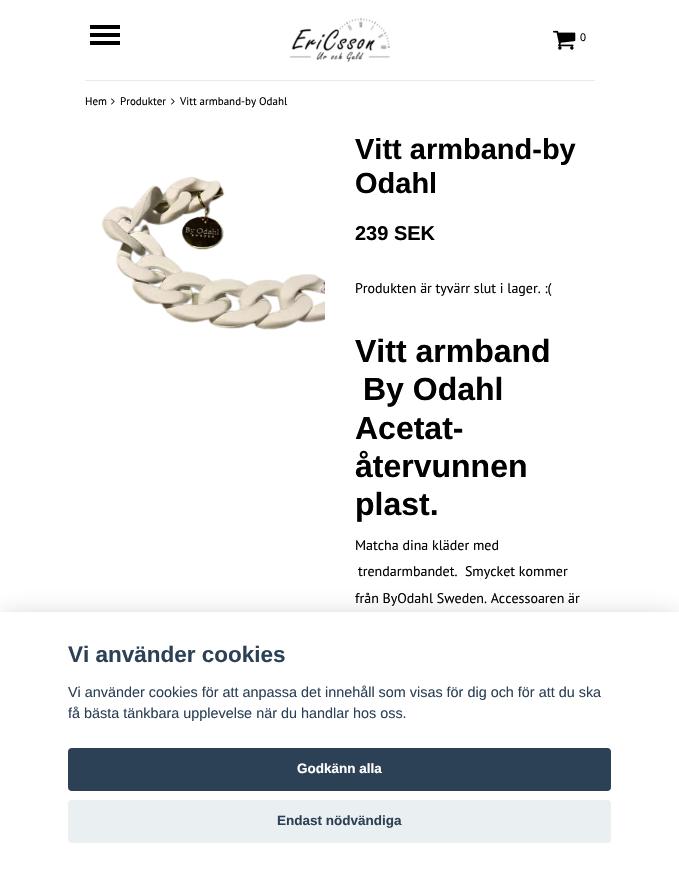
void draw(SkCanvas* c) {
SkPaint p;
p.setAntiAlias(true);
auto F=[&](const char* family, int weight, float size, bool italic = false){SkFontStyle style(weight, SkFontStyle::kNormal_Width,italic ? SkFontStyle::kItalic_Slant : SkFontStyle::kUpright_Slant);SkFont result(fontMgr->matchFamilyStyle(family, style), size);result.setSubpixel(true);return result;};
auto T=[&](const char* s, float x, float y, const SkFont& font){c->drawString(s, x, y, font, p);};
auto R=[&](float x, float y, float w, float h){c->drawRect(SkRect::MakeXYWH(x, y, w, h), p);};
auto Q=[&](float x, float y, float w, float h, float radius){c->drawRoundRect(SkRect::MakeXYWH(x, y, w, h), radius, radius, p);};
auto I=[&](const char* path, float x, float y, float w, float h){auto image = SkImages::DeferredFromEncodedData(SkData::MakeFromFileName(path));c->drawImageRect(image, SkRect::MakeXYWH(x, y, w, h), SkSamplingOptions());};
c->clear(0xffffffff);
p.setColor(0xff000000);
R(90,33,30,4);
R(90,25,30,4);
R(90,41,30,4);
I("1.png",289,17,101,45);
I("2.png",553,30,23,20);
auto f1 = F("PT Sans",400,11);
T("0",580,41,f1);
p.setColor(0xffeaeaea);
R(85,80,510,1);
p.setColor(0xff000000);
T("Hem",85,105,f1);
I("3.png",111,98,4,7);
T("Produkter",120,105,f1);
I("3.png",171,98,4,7);
T("Vitt armband-by Odahl",180,105,f1);
I("4.png",101,176,224,154);
auto f2 = F("Arimo",700,29);
T("Vitt armband-by",355,159,f2);
T("Odahl",355,193,f2);
auto f3 = F("Arimo",700,20);
T("239 SEK",355,240,f3);
auto f4 = F("PT Sans",400,14);
T("Produkten är tyvärr slut i lager. :(",355,293,f4);
auto f5 = F("Arimo",700,32);
T("Vitt armband",355,362,f5);
T("By Odahl",363,400,f5);
T("Acetat-",355,439,f5);
T("återvunnen",355,477,f5);
T("plast.",355,515,f5);
T("Matcha dina kläder med",355,550,f4);
T("trendarmbandet.  Smycket kommer",358,576,f4);
T("från ByOdahl Sweden. Accessoaren är",355,603,f4);
p.setColor(0x47020203);
p.setMaskFilter(SkMaskFilter::MakeBlur(kNormal_SkBlurStyle, 15));
c->drawRect(SkRect::MakeXYWH(0,622,679,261),p);
p.setMaskFilter(nullptr);
p.setColor(0xffffffff);
R(0,612,679,261);
auto f6 = F("Liberation Sans",700,22.5);
p.setColor(0xff2d4156);
T("Vi använder cookies",68,662,f6);
auto f7 = F("Liberation Sans",400,14.4);
T("Vi använder cookies för att anpassa det innehåll som visas för dig och för att du ska",68,697,f7);
T("få bästa tänkbara upplevelse när du handlar hos oss.",68,718,f7);
Q(68,748,543,43,4);
auto f8 = F("Liberation Sans",700,13.5);
p.setColor(0xffffffff);
T("Godkänn alla",297,773,f8);
p.setColor(0xffeaeff2);
Q(68,800,543,43,4);
p.setColor(0xff2d4156);
T("Endast nödvändiga",277,825,f8);
}
